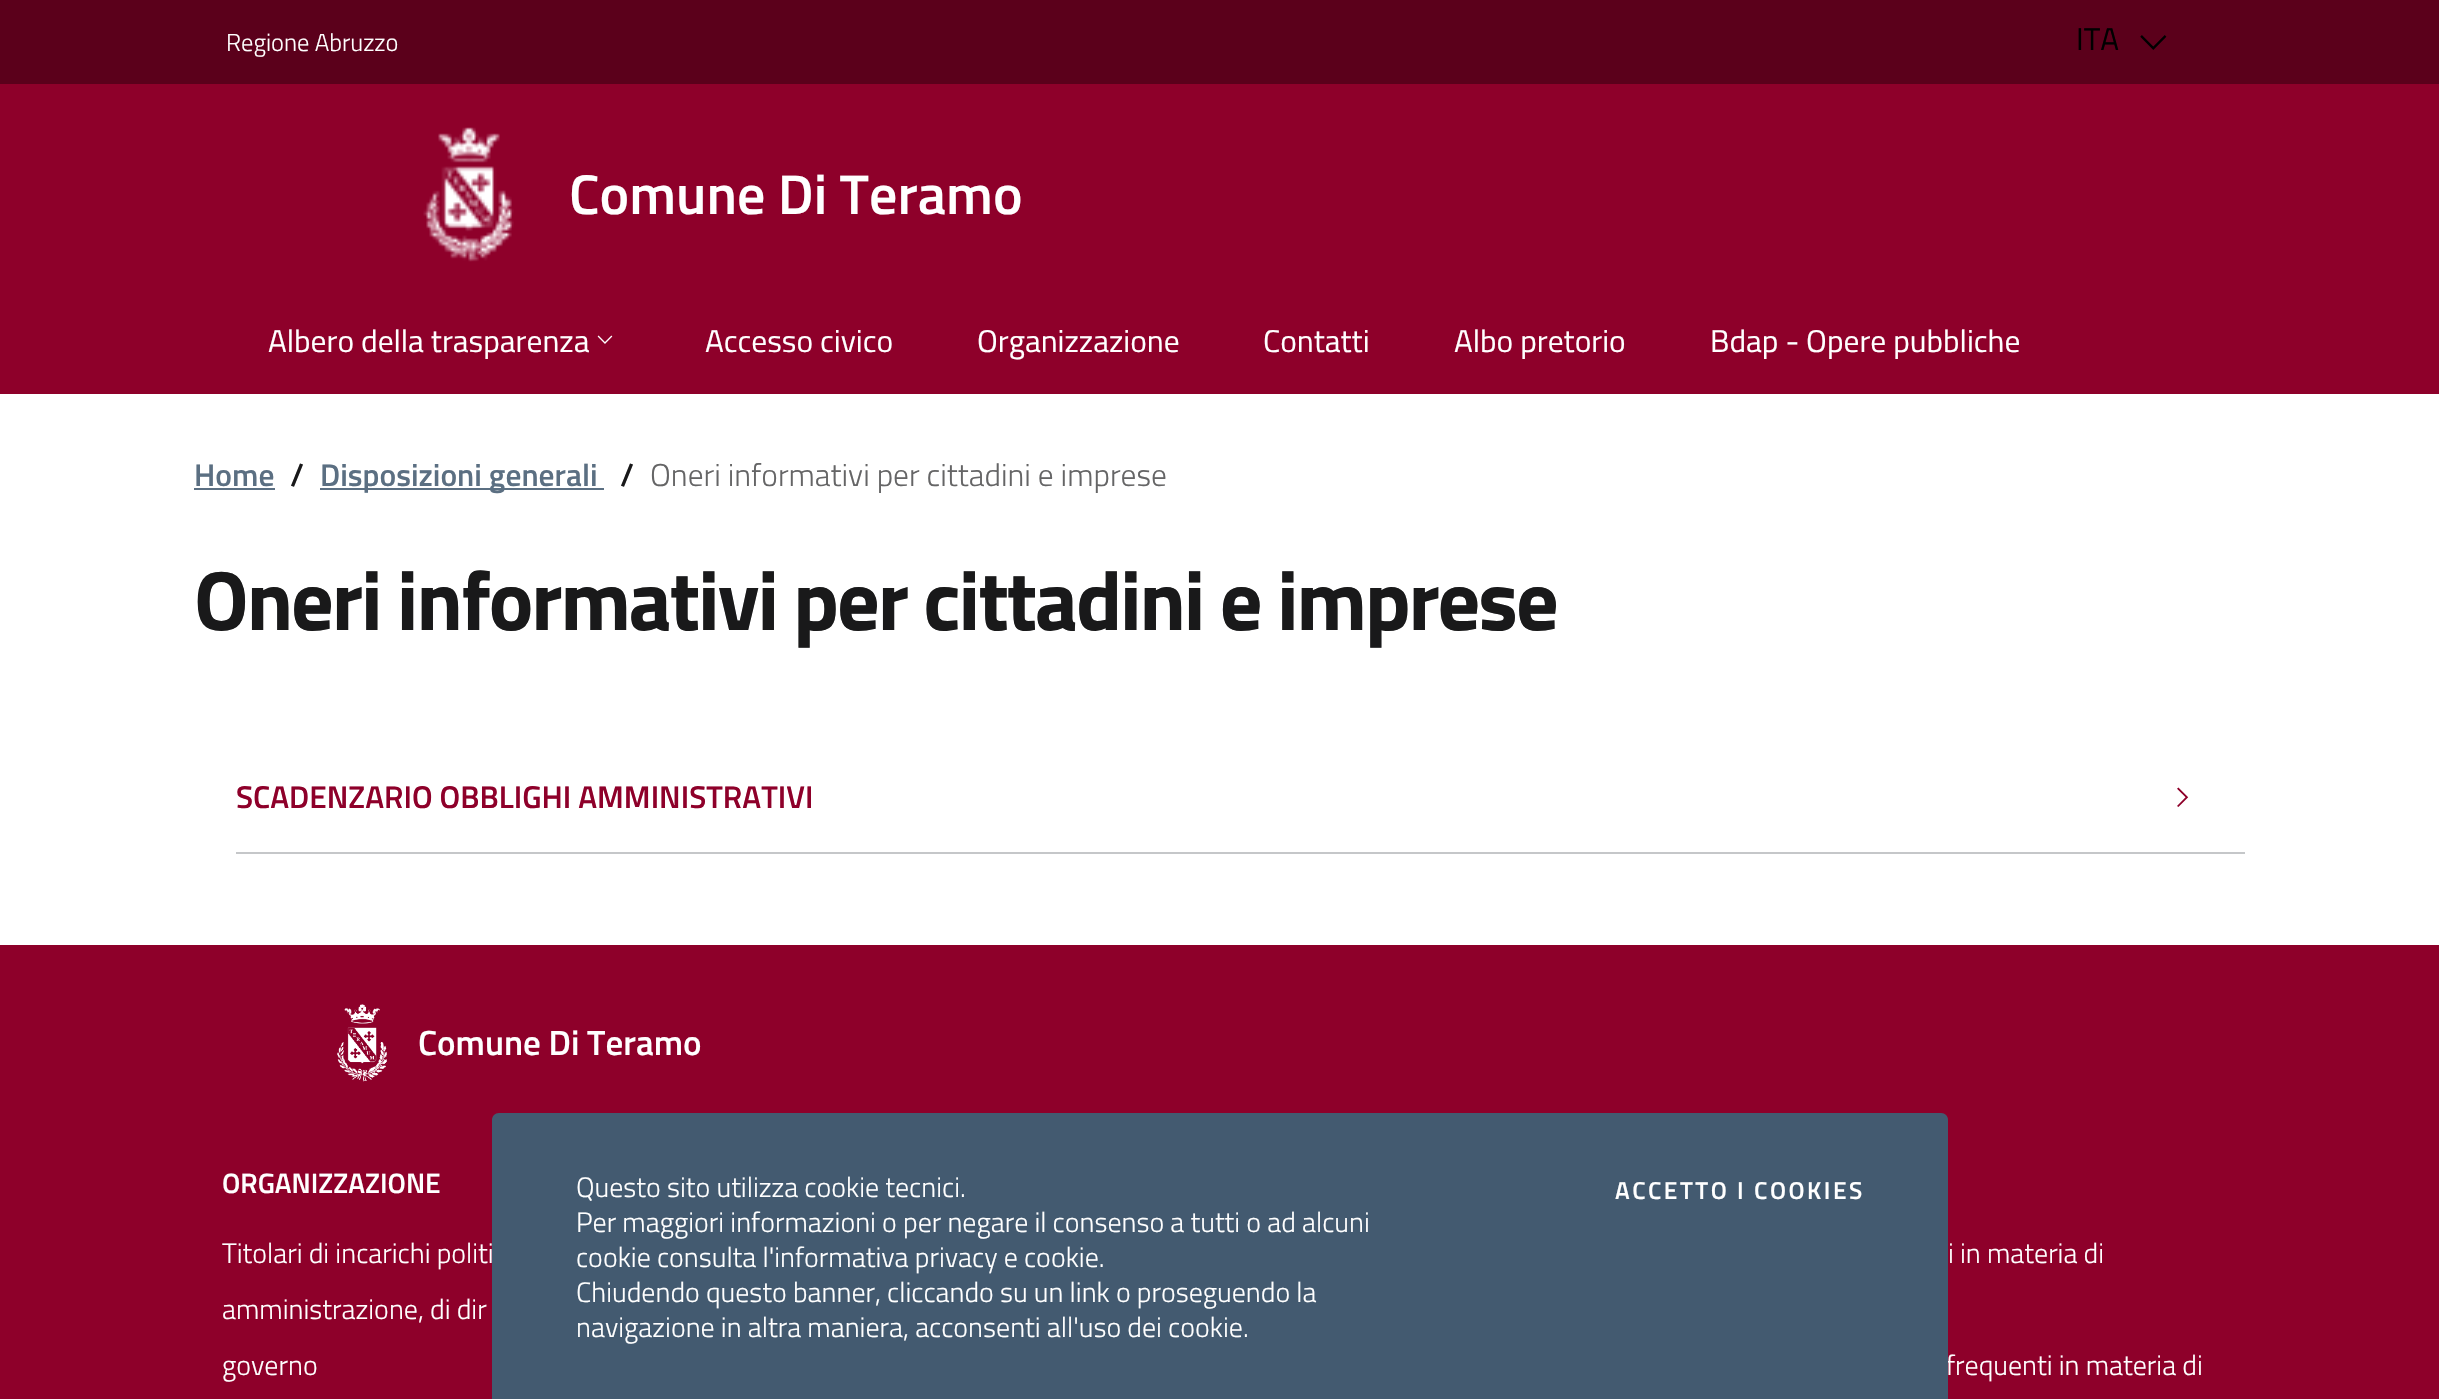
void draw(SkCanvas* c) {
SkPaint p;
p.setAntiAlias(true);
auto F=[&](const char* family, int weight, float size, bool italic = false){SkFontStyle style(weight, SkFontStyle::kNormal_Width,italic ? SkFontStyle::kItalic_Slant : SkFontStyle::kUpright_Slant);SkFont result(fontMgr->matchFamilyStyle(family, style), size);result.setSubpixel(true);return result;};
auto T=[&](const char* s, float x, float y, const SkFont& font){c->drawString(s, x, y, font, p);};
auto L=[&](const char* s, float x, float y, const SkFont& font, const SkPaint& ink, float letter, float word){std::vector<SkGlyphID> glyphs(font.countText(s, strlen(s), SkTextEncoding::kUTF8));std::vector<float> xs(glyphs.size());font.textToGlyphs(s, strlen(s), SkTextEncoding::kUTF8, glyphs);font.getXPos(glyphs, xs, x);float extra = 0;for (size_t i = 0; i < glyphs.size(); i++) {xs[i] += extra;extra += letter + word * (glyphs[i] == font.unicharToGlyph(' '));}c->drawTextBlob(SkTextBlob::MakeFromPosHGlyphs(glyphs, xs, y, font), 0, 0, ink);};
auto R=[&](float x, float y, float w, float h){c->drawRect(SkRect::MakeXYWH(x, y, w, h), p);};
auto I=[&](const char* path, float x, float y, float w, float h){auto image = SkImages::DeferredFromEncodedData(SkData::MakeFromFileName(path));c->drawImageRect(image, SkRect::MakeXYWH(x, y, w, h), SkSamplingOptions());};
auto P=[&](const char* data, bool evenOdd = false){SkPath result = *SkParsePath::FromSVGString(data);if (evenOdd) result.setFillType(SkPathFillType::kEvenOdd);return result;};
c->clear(0xffffffff);
p.setColor(0xff5b001b);
R(0,0,2439,84);
auto f1 = F("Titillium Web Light",300,24.5);
p.setColor(0xffffffff);
T("Regione Abruzzo",226,51,f1);
auto f2 = F("Titillium Web",400,31.5);
p.setColor(0xff000000);
T("ITA",2076,50,f2);
I("1.png",2140,35,27,15);
p.setColor(0xff8e002a);
R(0,84,2439,310);
I("2.png",423,127,91,135);
auto f3 = F("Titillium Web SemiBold",600,56);
p.setColor(0xffffffff);
T("Comune Di Teramo",569,214,f3);
T("Albero della trasparenza",268,352,f2);
I("3.png",597,335,16,9);
T("Accesso civico",705,352,f2);
T("Organizzazione",977,352,f2);
T("Contatti",1263,352,f2);
T("Albo pretorio",1454,352,f2);
T("Bdap - Opere pubbliche",1710,352,f2);
auto f4 = F("Titillium Web SemiBold",600,31.5);
p.setColor(0xff5b6f82);
T("Home",194,486,f4);
R(194,488,81,2);
p.setColor(0xff19191a);
T("/",290,486,f4);
p.setColor(0xff5b6f82);
R(320,488,284,2);
T("Disposizioni generali",320,486,f4);
p.setColor(0xff19191a);
T("/",620,486,f4);
auto f5 = F("Titillium Web Light",300,31.5);
p.setColor(0xff656566);
T("Oneri informativi per cittadini e imprese",650,486,f5);
auto f6 = F("Titillium Web",700,84);
p.setColor(0xff19191a);
L("Oneri informativi per cittadini e imprese",194,630,f6,p,-2.1,0);
p.setColor(0xffc5c7c9);
R(236,852,2009,2);
p.setColor(0xff8e002a);
T("SCADENZARIO OBBLIGHI AMMINISTRATIVI",236,808,f4);
I("4.png",2177,787,12,20);
R(0,945,2439,454);
I("5.png",337,1004,50,78);
auto f7 = F("Titillium Web SemiBold",600,35);
p.setColor(0xffffffff);
T("Comune Di Teramo",418,1055,f7);
auto f8 = F("Titillium Web SemiBold",600,28);
T("ORGANIZZAZIONE",222,1193,f8);
auto f9 = F("Titillium Web Light",300,28);
T("Titolari di incarichi politi",222,1263,f9);
T("amministrazione, di dir",222,1319,f9);
T("governo",222,1375,f9);
T("i in materia di",1948,1263,f9);
T("frequenti in materia di",1946,1375,f9);
p.setColor(0xff435a70);
c->drawPath(P("M499 1113h1442c4 0 7 3 7 7v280h-1456v-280c0-4 3-7 7-7z"),p);
p.setColor(0xffffffff);
T("Questo sito utilizza cookie tecnici.",576,1197,f9);
T("Per maggiori informazioni o per negare il consenso a tutti o ad alcuni",576,1232,f9);
T("cookie consulta l'informativa privacy e cookie.",576,1267,f9);
T("Chiudendo questo banner, cliccando su un link o proseguendo la",576,1302,f9);
T("navigazione in altra maniera, acconsenti all'uso dei cookie.",576,1337,f9);
auto f10 = F("Titillium Web SemiBold",600,24.5);
L("ACCETTO I COOKIES",1615,1199,f10,p,2.5,0);
}
